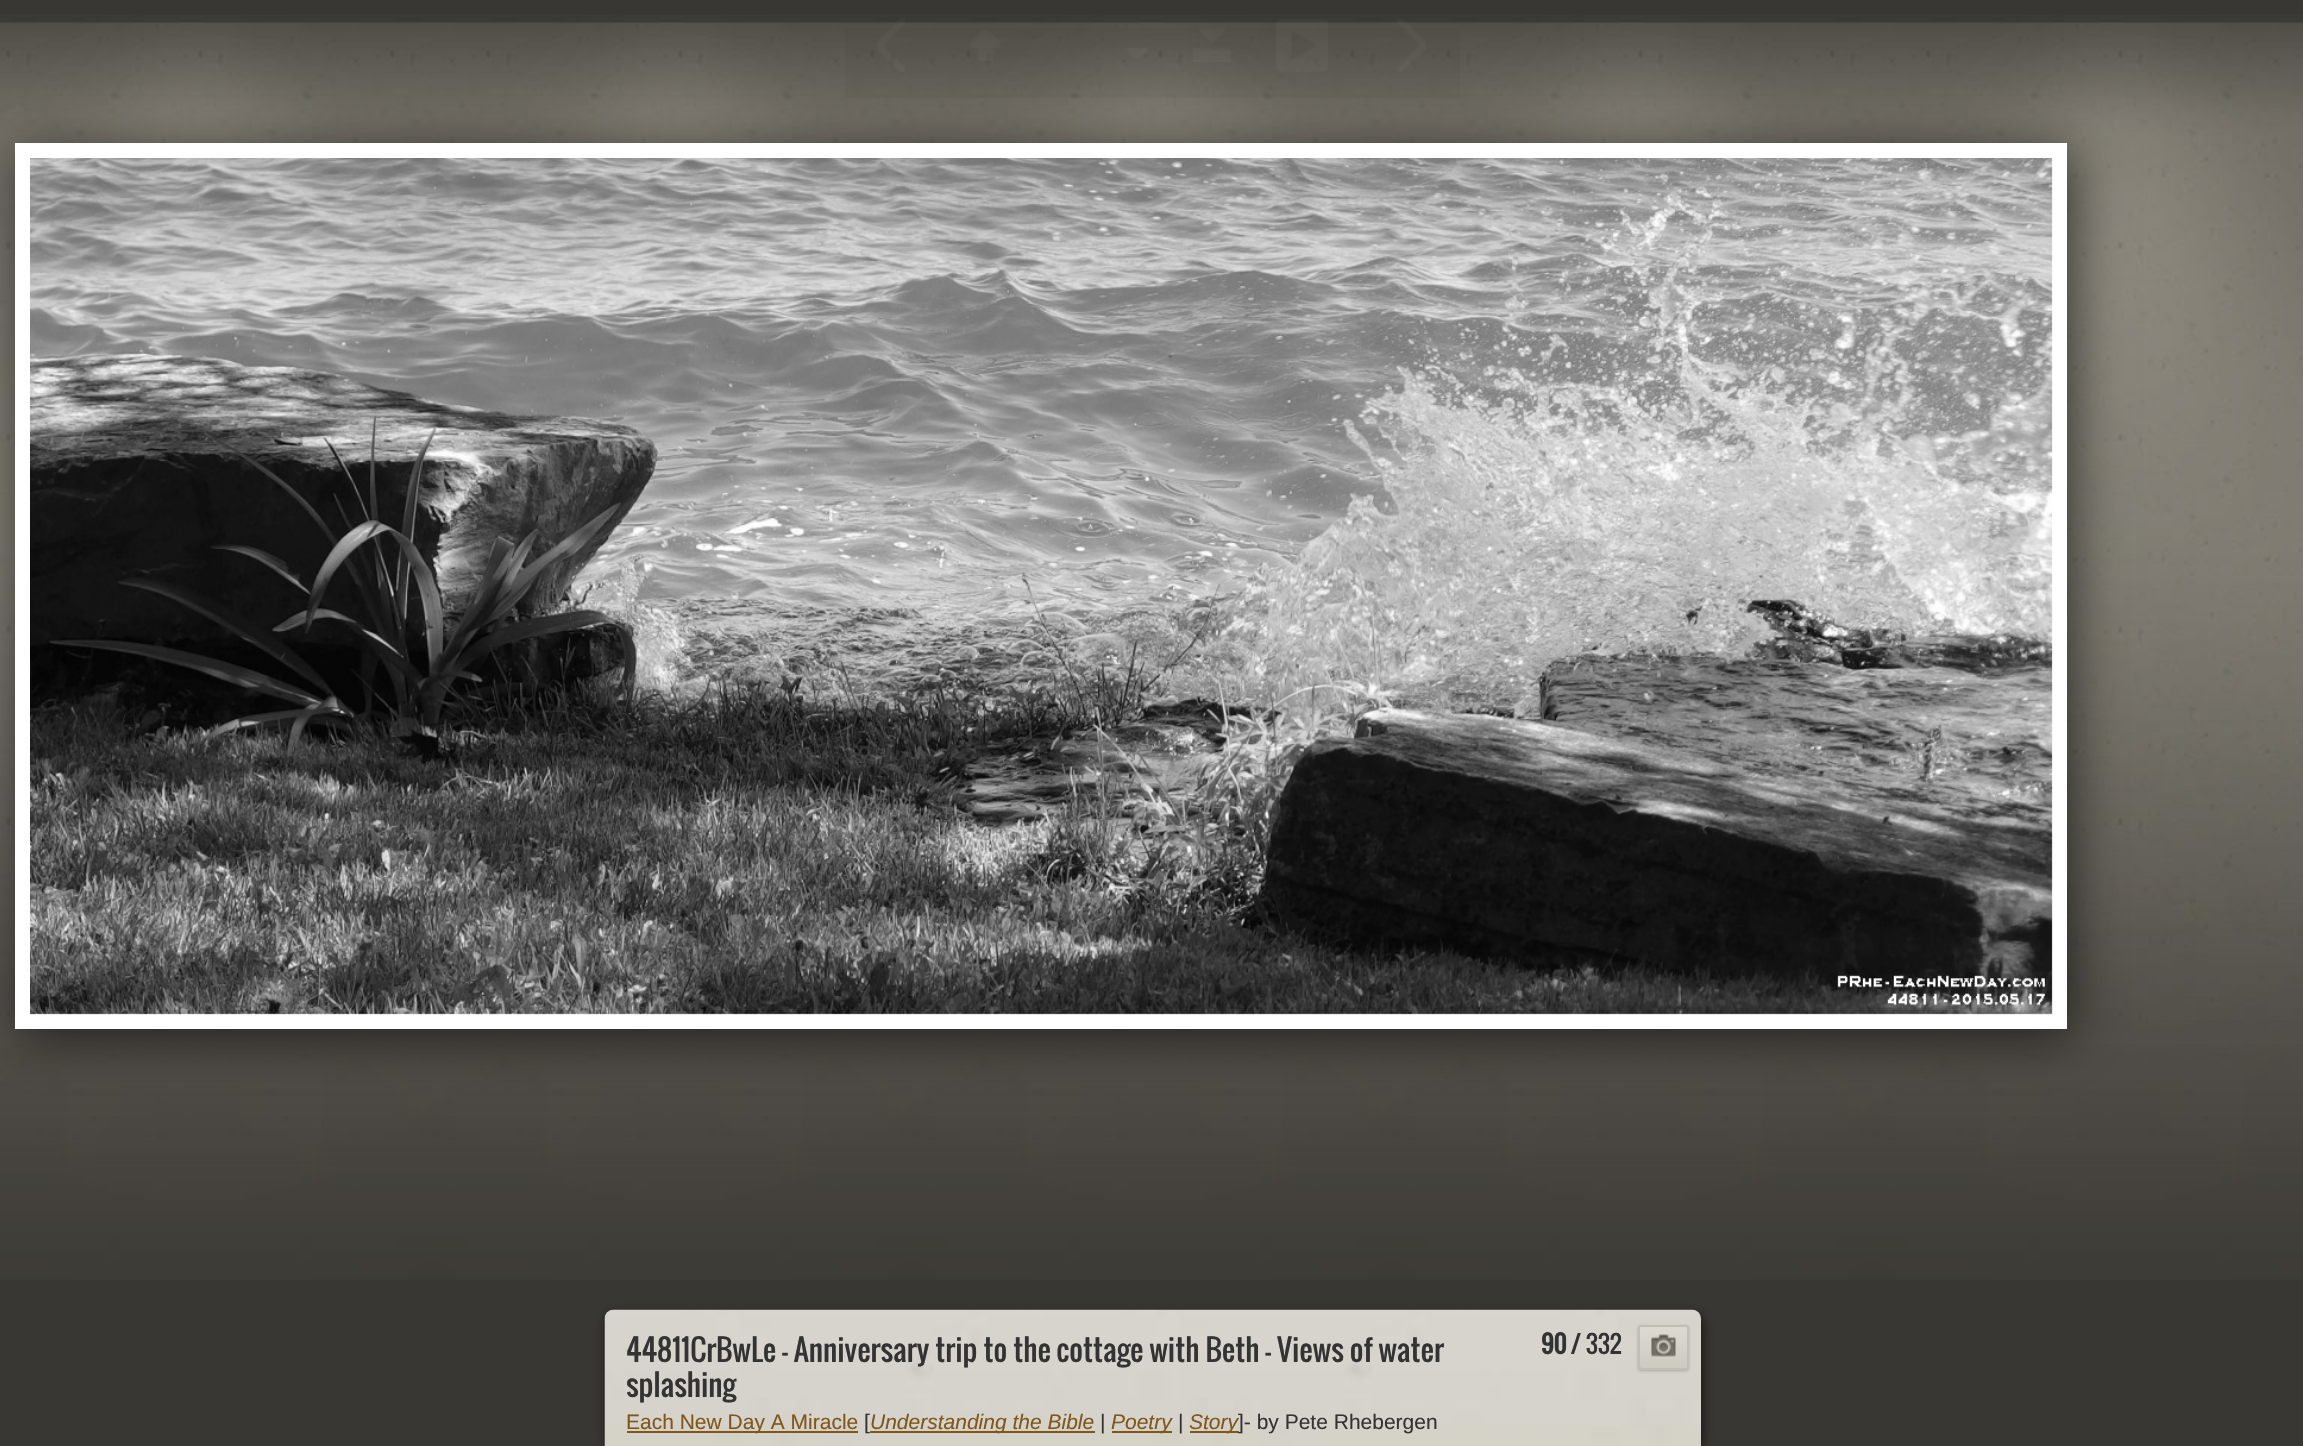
void draw(SkCanvas* c) {
SkPaint p;
p.setAntiAlias(true);
auto F=[&](const char* family, int weight, float size, bool italic = false){SkFontStyle style(weight, SkFontStyle::kNormal_Width,italic ? SkFontStyle::kItalic_Slant : SkFontStyle::kUpright_Slant);SkFont result(fontMgr->matchFamilyStyle(family, style), size);result.setSubpixel(true);return result;};
auto T=[&](const char* s, float x, float y, const SkFont& font){c->drawString(s, x, y, font, p);};
auto R=[&](float x, float y, float w, float h){c->drawRect(SkRect::MakeXYWH(x, y, w, h), p);};
auto Q=[&](float x, float y, float w, float h, float radius){c->drawRoundRect(SkRect::MakeXYWH(x, y, w, h), radius, radius, p);};
auto I=[&](const char* path, float x, float y, float w, float h){auto image = SkImages::DeferredFromEncodedData(SkData::MakeFromFileName(path));c->drawImageRect(image, SkRect::MakeXYWH(x, y, w, h), SkSamplingOptions());};
c->clear(0xff393733);
I("1.png",0,15,2303,1265);
p.setColor(0x99000000);
p.setMaskFilter(SkMaskFilter::MakeBlur(kNormal_SkBlurStyle, 24));
c->drawRect(SkRect::MakeXYWH(20,152,2052,886),p);
p.setMaskFilter(nullptr);
p.setColor(0x08000000);
R(845,28,615,70);
I("2.png",877,18,28,54);
I("3.png",971,30,29,31);
p.setColor(0xff57544d);
R(1073,35,1,1);
I("4.png",1193,28,38,34);
I("5.png",1276,19,52,53);
I("6.png",1397,19,29,53);
I("7.png",1127,48,20,11);
p.setColor(0xffffffff);
R(15,143,2052,886);
I("8.png",30,158,2023,857);
p.setColor(0x99000000);
p.setMaskFilter(SkMaskFilter::MakeBlur(kNormal_SkBlurStyle, 6));
c->drawRoundRect(SkRect::MakeXYWH(606,1314,1097,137),9,9,p);
p.setMaskFilter(nullptr);
I("9.png",604,1309,1097,137);
auto f1 = F("Oswald",400,29.4);
p.setColor(0xff333333);
T("44811CrBwLe - Anniversary trip to the cottage with Beth - Views of water",626,1362,f1);
T("splashing",626,1397,f1);
p.setColor(0xff80561a);
R(627,1431,231,2);
auto f2 = F("Liberation Sans",400,21);
T("Each New Day A Miracle",626,1429,f2);
p.setColor(0xff333333);
T("[",864,1429,f2);
p.setColor(0xff80561a);
R(870,1431,225,2);
auto f3 = F("Liberation Sans",400,21,true);
T("Understanding the Bible",870,1429,f3);
p.setColor(0xff333333);
T("|",1100,1429,f2);
p.setColor(0xff80561a);
R(1112,1431,60,2);
T("Poetry",1111,1429,f3);
p.setColor(0xff333333);
T("|",1178,1429,f2);
p.setColor(0xff80561a);
R(1190,1431,49,2);
T("Story",1189,1429,f3);
p.setColor(0xff333333);
T("]- by Pete Rhebergen",1238,1429,f2);
auto f4 = F("Oswald",700,24);
T("90",1541,1354,f4);
auto f5 = F("Oswald",400,24);
T("/ 332",1571,1354,f5);
p.setColor(0x33000000);
p.setMaskFilter(SkMaskFilter::MakeBlur(kNormal_SkBlurStyle, 1.5));
c->drawRoundRect(SkRect::MakeXYWH(1638,1326,51,45),3,3,p);
p.setMaskFilter(nullptr);
{
const SkColor colors[] = {0xffdedad2,0xffcdcac2};
const float stops[] = {0,1};
const SkPoint ends[] = {{1664,1326}, {1664,1368}};
p.setShader(SkGradientShader::MakeLinear(ends, colors, stops, 2, SkTileMode::kClamp));
p.setAlpha(255);
}
Q(1640,1326,48,42,1.5);
p.setStroke(true);
p.setStrokeWidth(2);
p.setShader(nullptr);
p.setColor(0xffc2beb4);
c->drawRoundRect(SkRect::MakeXYWH(1639,1326,49,43),2,2,p);
I("10.png",1651,1334,25,23);
}
